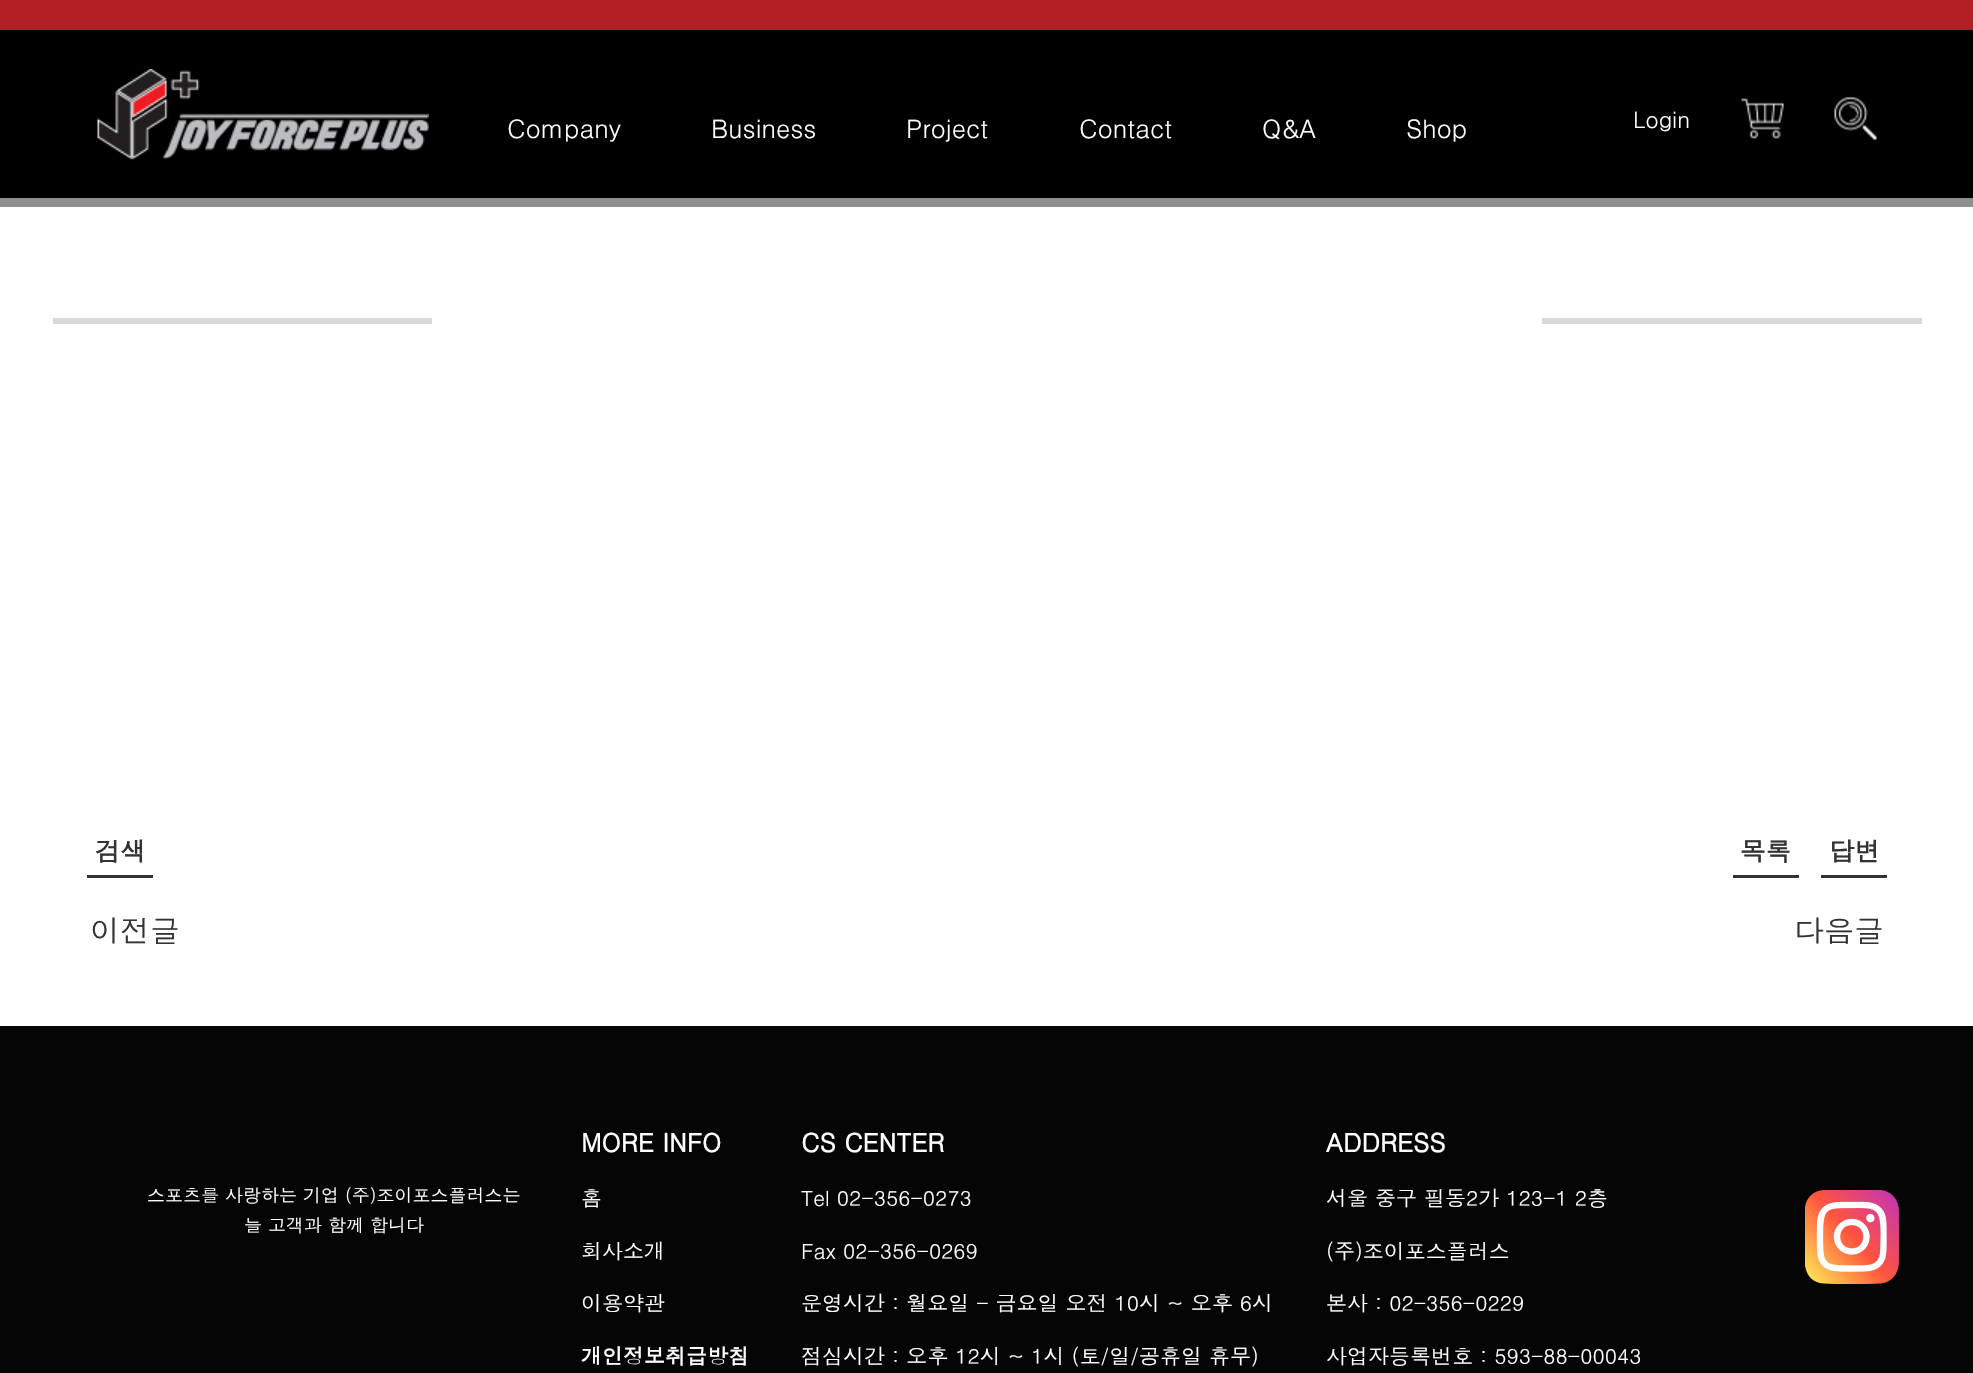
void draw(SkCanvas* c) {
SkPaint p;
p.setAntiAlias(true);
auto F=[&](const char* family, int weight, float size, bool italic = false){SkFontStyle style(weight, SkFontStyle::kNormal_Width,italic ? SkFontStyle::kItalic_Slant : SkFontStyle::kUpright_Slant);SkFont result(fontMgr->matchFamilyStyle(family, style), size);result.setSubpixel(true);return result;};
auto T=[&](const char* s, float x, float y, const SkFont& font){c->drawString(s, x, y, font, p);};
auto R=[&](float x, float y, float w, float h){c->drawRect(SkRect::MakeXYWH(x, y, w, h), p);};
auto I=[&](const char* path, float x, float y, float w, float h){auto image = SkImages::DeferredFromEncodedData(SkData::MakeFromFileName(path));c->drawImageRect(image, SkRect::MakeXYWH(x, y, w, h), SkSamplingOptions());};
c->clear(0xffffffff);
p.setColor(0xff000000);
R(0,30,1973,168);
p.setColor(0xffb21f24);
R(0,0,1973,30);
p.setColor(0xff8f8f8f);
R(0,198,1973,9);
I("1.png",97,69,332,91);
auto f1 = F("Dotum",400,25.5);
p.setColor(0xffffffff);
T("Company",507,138,f1);
T("Business",711,138,f1);
T("Project",906,138,f1);
T("Contact",1079,138,f1);
T("Q&A",1262,138,f1);
T("Shop",1406,138,f1);
auto f2 = F("Dotum",400,22.5);
T("Login",1633,128,f2);
I("2.png",1741,98,43,41);
I("3.png",1834,97,43,43);
p.setColor(0xffd8d8d8);
R(53,318,379,6);
R(1542,318,380,6);
p.setColor(0xff333333);
R(87,875,66,3);
auto f3 = F("Dotum",700,25.5);
T("검색",95,861,f3);
R(1733,875,66,3);
T("목록",1740,861,f3);
R(1821,875,66,3);
T("답변",1829,861,f3);
auto f4 = F("Dotum",400,30);
T("이전글",90,942,f4);
T("다음글",1794,942,f4);
p.setColor(0xff050505);
R(0,1026,1973,347);
auto f5 = F("Dotum",400,18);
p.setColor(0xffffffff);
T("스포츠를 사랑하는 기업 (주)조이포스플러스는",147,1202,f5);
T("늘 고객과 함께 합니다",244,1232,f5);
T("MORE INFO",581,1152,f3);
auto f6 = F("Dotum",400,21);
T("홈",581,1206,f6);
T("회사소개",581,1259,f6);
T("이용약관",581,1311,f6);
auto f7 = F("Dotum",700,21);
T("개인정보취급방침",581,1364,f7);
T("CS CENTER",801,1152,f3);
T("Tel 02-356-0273",801,1206,f6);
T("Fax 02-356-0269",801,1259,f6);
T("운영시간 : 월요일 - 금요일 오전 10시 ~ 오후 6시",801,1311,f6);
T("점심시간 : 오후 12시 ~ 1시 (토/일/공휴일 휴무)",801,1364,f6);
T("ADDRESS",1326,1152,f3);
T("서울 중구 필동2가 123-1 2층",1326,1206,f6);
T("(주)조이포스플러스",1326,1259,f6);
T("본사 : 02-356-0229",1326,1311,f6);
T("사업자등록번호 : 593-88-00043",1326,1364,f6);
I("4.png",1805,1190,94,94);
}
